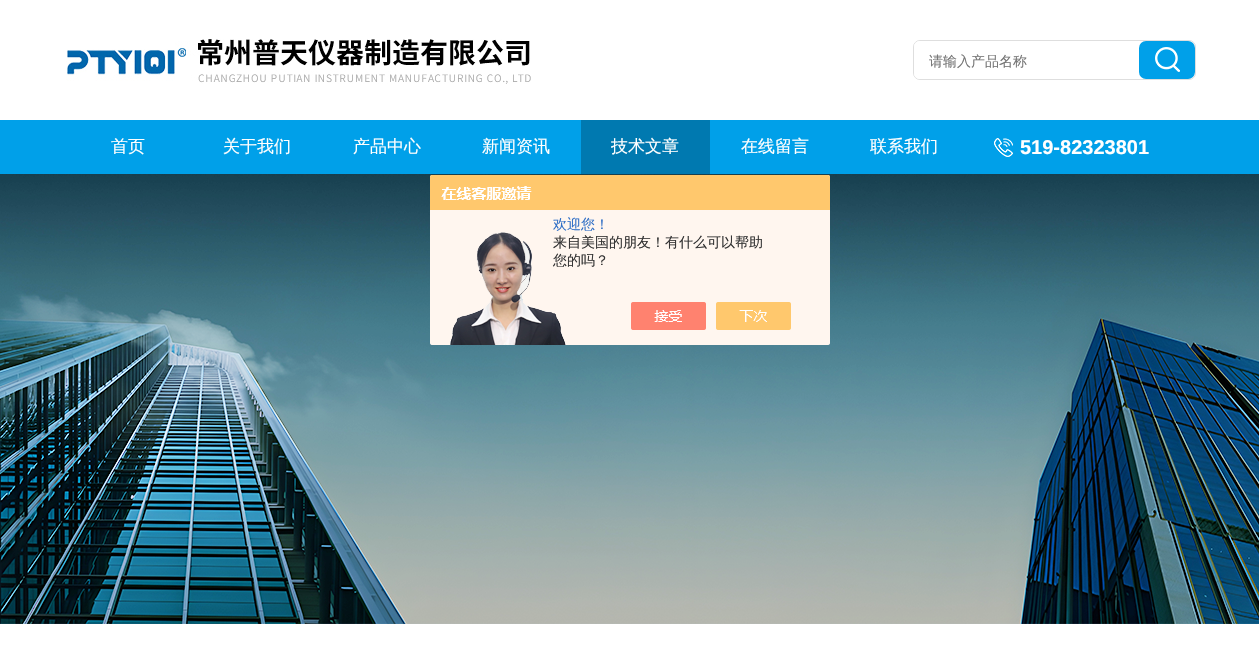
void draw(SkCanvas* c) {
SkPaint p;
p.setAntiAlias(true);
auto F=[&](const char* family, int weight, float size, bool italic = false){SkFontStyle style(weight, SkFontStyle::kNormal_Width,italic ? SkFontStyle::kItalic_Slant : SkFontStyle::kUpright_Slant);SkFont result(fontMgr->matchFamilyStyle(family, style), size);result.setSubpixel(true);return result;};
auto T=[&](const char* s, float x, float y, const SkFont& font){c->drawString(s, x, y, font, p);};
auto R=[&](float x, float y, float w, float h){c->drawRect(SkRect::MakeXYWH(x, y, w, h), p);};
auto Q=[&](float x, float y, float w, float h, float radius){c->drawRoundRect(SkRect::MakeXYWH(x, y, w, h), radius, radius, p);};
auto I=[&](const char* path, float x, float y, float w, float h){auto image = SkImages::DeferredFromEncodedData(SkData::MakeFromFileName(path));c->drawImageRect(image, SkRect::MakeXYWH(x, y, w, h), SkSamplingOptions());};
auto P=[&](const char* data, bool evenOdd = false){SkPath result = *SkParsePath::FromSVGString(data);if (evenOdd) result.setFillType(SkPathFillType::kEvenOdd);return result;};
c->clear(0xffffffff);
I("1.png",66,39,465,45);
p.setStroke(true);
p.setStrokeWidth(1);
p.setColor(0xffdedede);
c->drawRoundRect(SkRect::MakeXYWH(913.5,40.5,282,39),6.5,6.5,p);
p.setStroke(false);
p.setColor(0xffffffff);
c->drawPath(P("M920 41h219v38h-219c-3.5 0-6-2.5-6-6v-26c0-3.5 2.5-6 6-6z"),p);
auto f1 = F("WenQuanYi Zen Hei",500,14);
p.setColor(0xff757575);
T("请输入产品名称",929,66,f1);
c->save();
c->clipPath(P("M920 41h269c3.5 0 6 2.5 6 6v26c0 3.5-2.5 6-6 6h-269c-3.5 0-6-2.5-6-6v-26c0-3.5 2.5-6 6-6z"),true);
p.setColor(0xff00a0e9);
Q(1139,41,56,38,7);
c->restore();
I("2.png",1155,47,25,25);
R(0,120,1259,54);
auto f2 = F("WenQuanYi Zen Hei",500,17);
p.setColor(0xffffffff);
T("首页",111,152,f2);
T("关于我们",223,152,f2);
T("产品中心",353,152,f2);
T("新闻资讯",482,152,f2);
p.setColor(0xff0079b0);
R(581,120,129,54);
p.setColor(0xffffffff);
T("技术文章",611,152,f2);
T("在线留言",741,152,f2);
T("联系我们",870,152,f2);
I("3.png",994,138,19,19);
auto f3 = F("Liberation Sans",700,20);
T("519-82323801",1020,154,f3);
I("4.png",0,174,1259,450);
I("5.png",430,175,400,170);
p.setColor(0xff2e6ec6);
T("欢迎您！",553,229,f1);
p.setColor(0xff333333);
T("来自美国的朋友！有什么可以帮助",553,247,f1);
T("您的吗？",553,265,f1);
}
